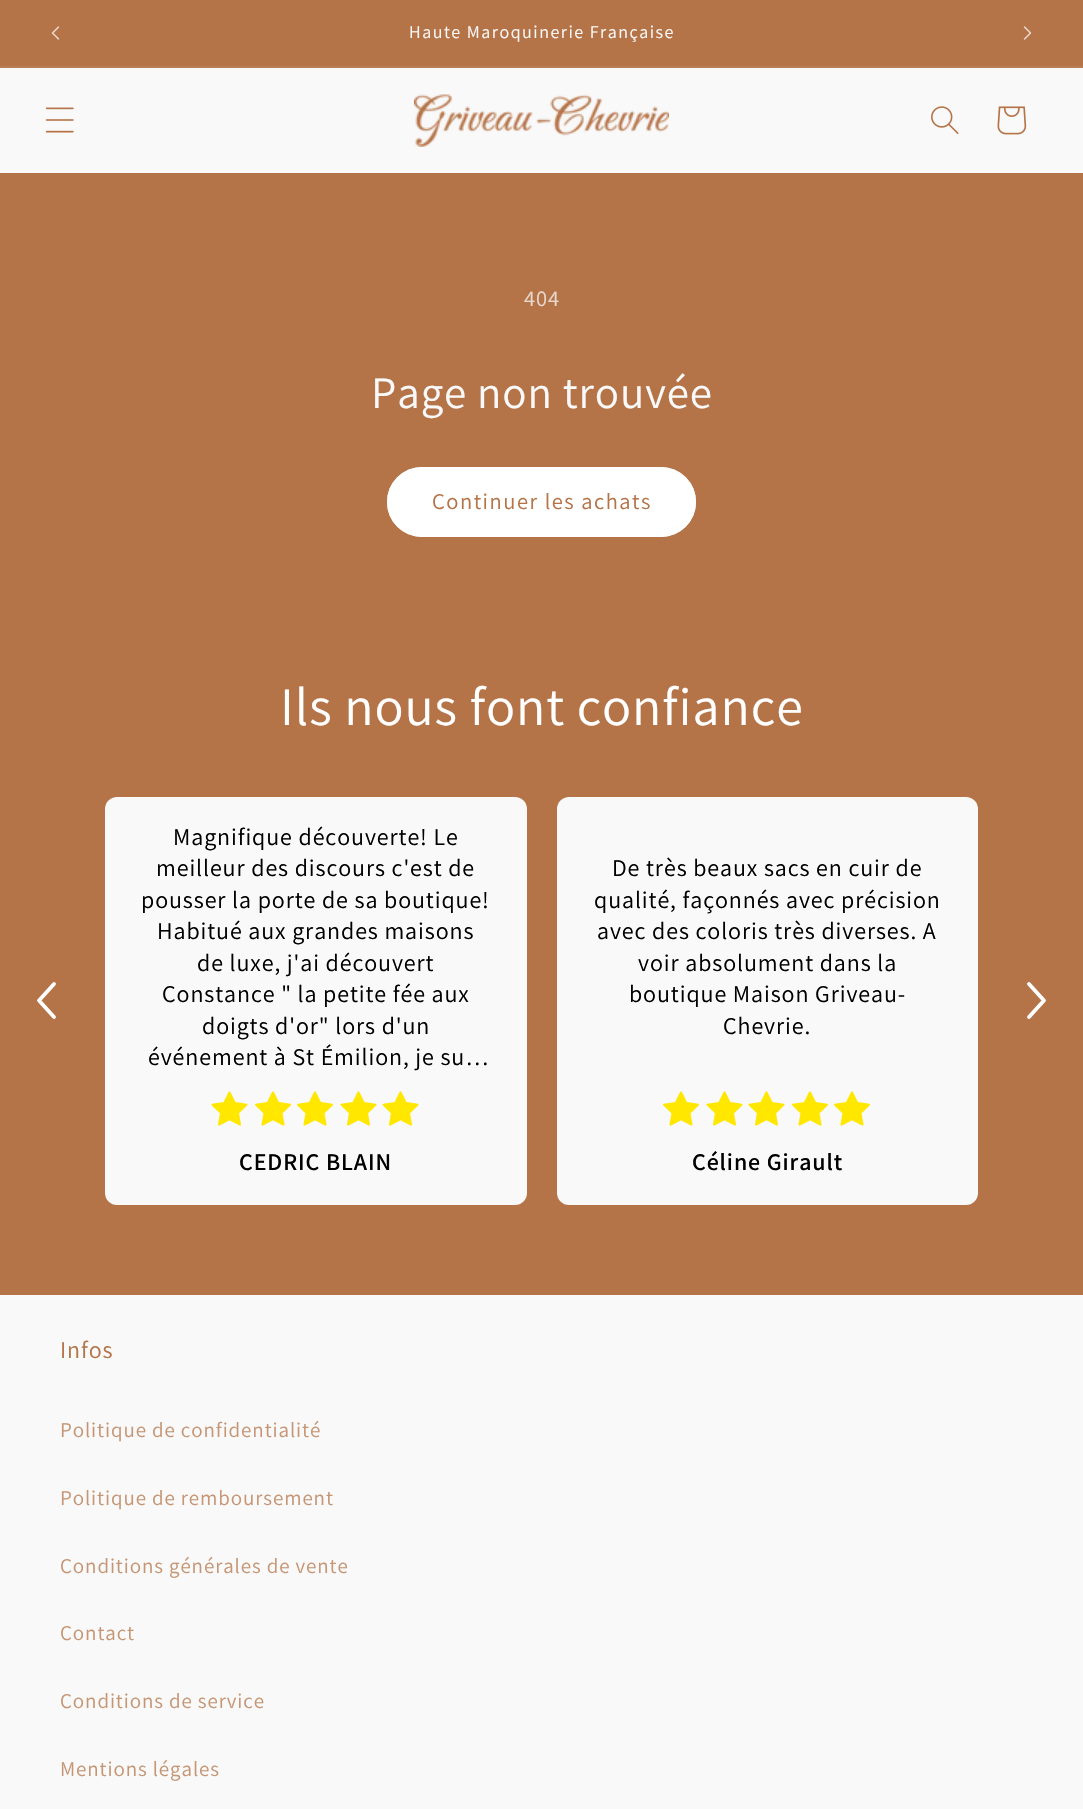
void draw(SkCanvas* c) {
SkPaint p;
p.setAntiAlias(true);
auto F=[&](const char* family, int weight, float size, bool italic = false){SkFontStyle style(weight, SkFontStyle::kNormal_Width,italic ? SkFontStyle::kItalic_Slant : SkFontStyle::kUpright_Slant);SkFont result(fontMgr->matchFamilyStyle(family, style), size);result.setSubpixel(true);return result;};
auto L=[&](const char* s, float x, float y, const SkFont& font, const SkPaint& ink, float letter, float word){std::vector<SkGlyphID> glyphs(font.countText(s, strlen(s), SkTextEncoding::kUTF8));std::vector<float> xs(glyphs.size());font.textToGlyphs(s, strlen(s), SkTextEncoding::kUTF8, glyphs);font.getXPos(glyphs, xs, x);float extra = 0;for (size_t i = 0; i < glyphs.size(); i++) {xs[i] += extra;extra += letter + word * (glyphs[i] == font.unicharToGlyph(' '));}c->drawTextBlob(SkTextBlob::MakeFromPosHGlyphs(glyphs, xs, y, font), 0, 0, ink);};
auto R=[&](float x, float y, float w, float h){c->drawRect(SkRect::MakeXYWH(x, y, w, h), p);};
auto Q=[&](float x, float y, float w, float h, float radius){c->drawRoundRect(SkRect::MakeXYWH(x, y, w, h), radius, radius, p);};
auto I=[&](const char* path, float x, float y, float w, float h){auto image = SkImages::DeferredFromEncodedData(SkData::MakeFromFileName(path));c->drawImageRect(image, SkRect::MakeXYWH(x, y, w, h), SkSamplingOptions());};
auto P=[&](const char* data, bool evenOdd = false){SkPath result = *SkParsePath::FromSVGString(data);if (evenOdd) result.setFillType(SkPathFillType::kEvenOdd);return result;};
c->clear(0xffb57348);
p.setColor(0xffba7e56);
R(0,66,1083,2);
I("1.png",51,26,9,14);
auto f1 = F("Assistant",400,18);
p.setColor(0xfff9f9f9);
L("Haute Maroquinerie Française",409,38,f1,p,1.5,0);
I("2.png",1023,26,9,14);
R(0,68,1083,105);
I("3.png",45,107,29,26);
I("4.png",414,94,255,53);
I("5.png",931,106,28,28);
I("6.png",997,106,30,29);
auto f2 = F("Assistant",400,22.5);
p.setColor(0xffe8d8cd);
L("404",524,306,f2,p,.9,0);
auto f3 = F("Assistant",400,45);
p.setColor(0xfff9f9f9);
L("Page non trouvée",371,408,f3,p,.9,0);
p.setColor(0xffffffff);
Q(387,467,309,70,35);
p.setStroke(true);
p.setStrokeWidth(2);
c->drawRoundRect(SkRect::MakeXYWH(388,468,307,68),34,34,p);
p.setStroke(false);
p.setColor(0xffb57348);
L("Continuer les achats",432,509,f2,p,1.5,0);
auto f4 = F("Assistant",400,54);
p.setColor(0xffffffff);
L("Ils nous font confiance",280,725,f4,p,.9,0);
p.setStroke(true);
p.setStrokeWidth(3.8);
p.setStrokeCap(SkPaint::kRound_Cap);
p.setStrokeJoin(SkPaint::kRound_Join);
c->drawPath(P("M54 984l-15 16.5l15 16.5"),p);
p.setStroke(false);
p.setColor(0xfff9f9f9);
Q(105,797,422,408,12);
auto f5 = F("Assistant",400,24);
p.setColor(0xff000000);
L("Magnifique découverte! Le",173,845,f5,p,.9,0);
L("meilleur des discours c'est de",156,876,f5,p,.9,0);
L("pousser la porte de sa boutique!",141,908,f5,p,.9,0);
L("Habitué aux grandes maisons",157,939,f5,p,.9,0);
L("de luxe, j'ai découvert",197,971,f5,p,.9,0);
L("Constance \" la petite fée aux",162,1002,f5,p,.9,0);
L("doigts d'or\" lors d'un",202,1034,f5,p,.9,0);
L("événement à St Émilion, je su…",148,1065,f5,p,.9,0);
I("7.png",211,1091,37,35);
I("8.png",255,1091,36,35);
I("8.png",297,1091,36,35);
I("7.png",340,1091,37,35);
I("7.png",382,1091,37,35);
auto f6 = F("Assistant",600,24);
L("CEDRIC BLAIN",239,1170,f6,p,.9,0);
p.setColor(0xfff9f9f9);
Q(557,797,421,408,12);
p.setColor(0xff000000);
L("De très beaux sacs en cuir de",612,876,f5,p,.9,0);
L("qualité, façonnés avec précision",594,908,f5,p,.9,0);
L("avec des coloris très diverses. A",597,939,f5,p,.9,0);
L("voir absolument dans la",638,971,f5,p,.9,0);
L("boutique Maison Griveau-",629,1002,f5,p,.9,0);
L("Chevrie.",723,1034,f5,p,.9,0);
I("8.png",663,1091,36,35);
I("7.png",706,1091,37,35);
I("7.png",748,1091,37,35);
I("8.png",792,1091,36,35);
I("8.png",834,1091,36,35);
L("Céline Girault",692,1170,f6,p,.9,0);
p.setStroke(true);
p.setColor(0xffffffff);
c->drawPath(P("M1029 984l15 16.5l-15 16.5"),p);
p.setStroke(false);
p.setColor(0xfff9f9f9);
R(0,1295,1083,514);
p.setColor(0xffb57348);
L("Infos",60,1358,f5,p,.9,0);
auto f7 = F("Assistant",400,21);
p.setColor(0xffc69574);
L("Politique de confidentialité",60,1437,f7,p,.9,0);
L("Politique de remboursement",60,1505,f7,p,.9,0);
L("Conditions générales de vente",60,1573,f7,p,.9,0);
L("Contact",60,1640,f7,p,.9,0);
L("Conditions de service",60,1708,f7,p,.9,0);
L("Mentions légales",60,1776,f7,p,.9,0);
}
